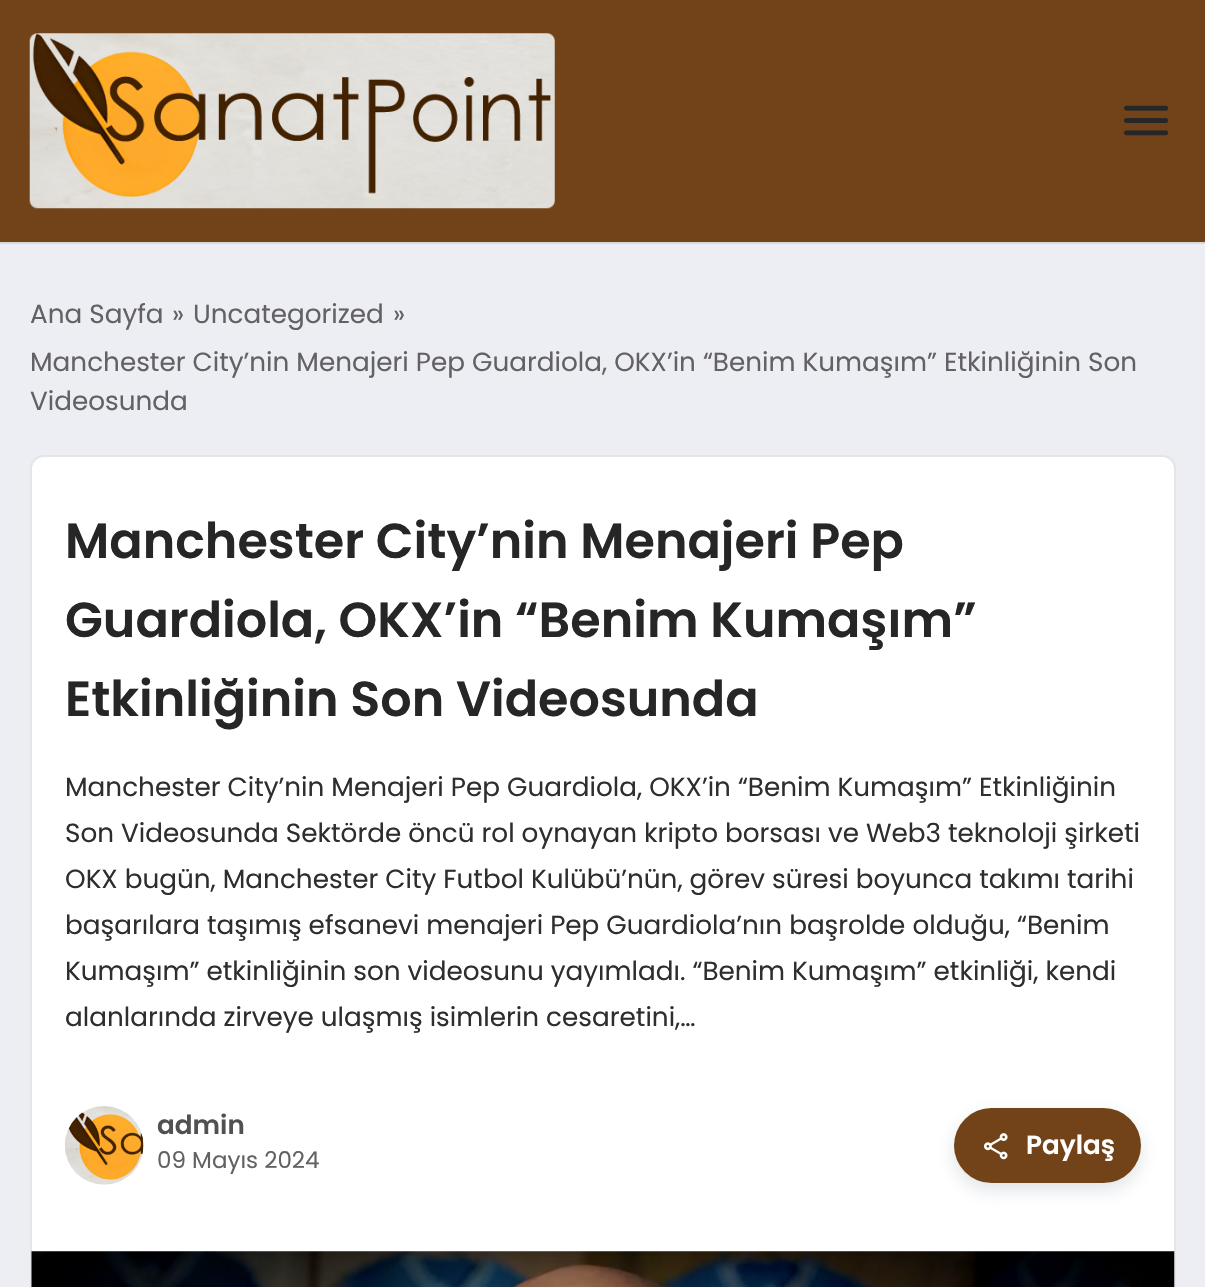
void draw(SkCanvas* c) {
SkPaint p;
p.setAntiAlias(true);
auto F=[&](const char* family, int weight, float size, bool italic = false){SkFontStyle style(weight, SkFontStyle::kNormal_Width,italic ? SkFontStyle::kItalic_Slant : SkFontStyle::kUpright_Slant);SkFont result(fontMgr->matchFamilyStyle(family, style), size);result.setSubpixel(true);return result;};
auto T=[&](const char* s, float x, float y, const SkFont& font){c->drawString(s, x, y, font, p);};
auto R=[&](float x, float y, float w, float h){c->drawRect(SkRect::MakeXYWH(x, y, w, h), p);};
auto Q=[&](float x, float y, float w, float h, float radius){c->drawRoundRect(SkRect::MakeXYWH(x, y, w, h), radius, radius, p);};
auto I=[&](const char* path, float x, float y, float w, float h){auto image = SkImages::DeferredFromEncodedData(SkData::MakeFromFileName(path));c->drawImageRect(image, SkRect::MakeXYWH(x, y, w, h), SkSamplingOptions());};
c->clear(0xffededf4);
p.setColor(0xff724318);
R(0,0,1205,242);
I("1.png",29,33,526,176);
I("2.png",1123,105,46,31);
p.setColor(0xffd9d9d9);
R(0,242,1205,2);
auto f1 = F("Poppins",400,26.25);
p.setColor(0xff626264);
T("Ana Sayfa",30,323,f1);
T("»",172,323,f1);
T("Uncategorized",193,323,f1);
T("»",393,323,f1);
T("Manchester City’nin Menajeri Pep Guardiola, OKX’in “Benim Kumaşım” Etkinliğinin Son",30,371,f1);
T("Videosunda",30,410,f1);
p.setColor(0xffffffff);
Q(30,455,1146,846,14);
p.setStroke(true);
p.setStrokeWidth(2);
p.setColor(0x1a000000);
c->drawRoundRect(SkRect::MakeXYWH(31,456,1144,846),13,13,p);
auto f2 = F("Poppins",600,49.25);
p.setStroke(false);
p.setColor(0xff262626);
T("Manchester City’nin Menajeri Pep",65,558,f2);
T("Guardiola, OKX’in “Benim Kumaşım”",65,637,f2);
T("Etkinliğinin Son Videosunda",65,716,f2);
p.setColor(0xff2e2e2e);
T("Manchester City’nin Menajeri Pep Guardiola, OKX’in “Benim Kumaşım” Etkinliğinin",65,796,f1);
T("Son Videosunda Sektörde öncü rol oynayan kripto borsası ve Web3 teknoloji şirketi",65,842,f1);
T("OKX bugün, Manchester City Futbol Kulübü’nün, görev süresi boyunca takımı tarihi",65,888,f1);
T("başarılara taşımış efsanevi menajeri Pep Guardiola’nın başrolde olduğu, “Benim",65,934,f1);
T("Kumaşım” etkinliğinin son videosunu yayımladı. “Benim Kumaşım” etkinliği, kendi",65,980,f1);
T("alanlarında zirveye ulaşmış isimlerin cesaretini,…",65,1026,f1);
I("3.png",65,1106,79,79);
auto f3 = F("Poppins",600,26.25);
p.setColor(0xff515151);
T("admin",157,1134,f3);
auto f4 = F("Poppins",400,23);
p.setColor(0xff626264);
T("09 Mayıs 2024",157,1168,f4);
p.setColor(0x336b7280);
p.setMaskFilter(SkMaskFilter::MakeBlur(kNormal_SkBlurStyle, 9));
c->drawRoundRect(SkRect::MakeXYWH(954,1115,187,75),37.5,37.5,p);
p.setMaskFilter(nullptr);
p.setColor(0xff724318);
Q(954,1108,187,75,37.5);
I("4.png",983,1133,25,27);
p.setColor(0xffffffff);
T("Paylaş",1026,1154,f3);
I("5.png",31,1251,1144,36);
}
